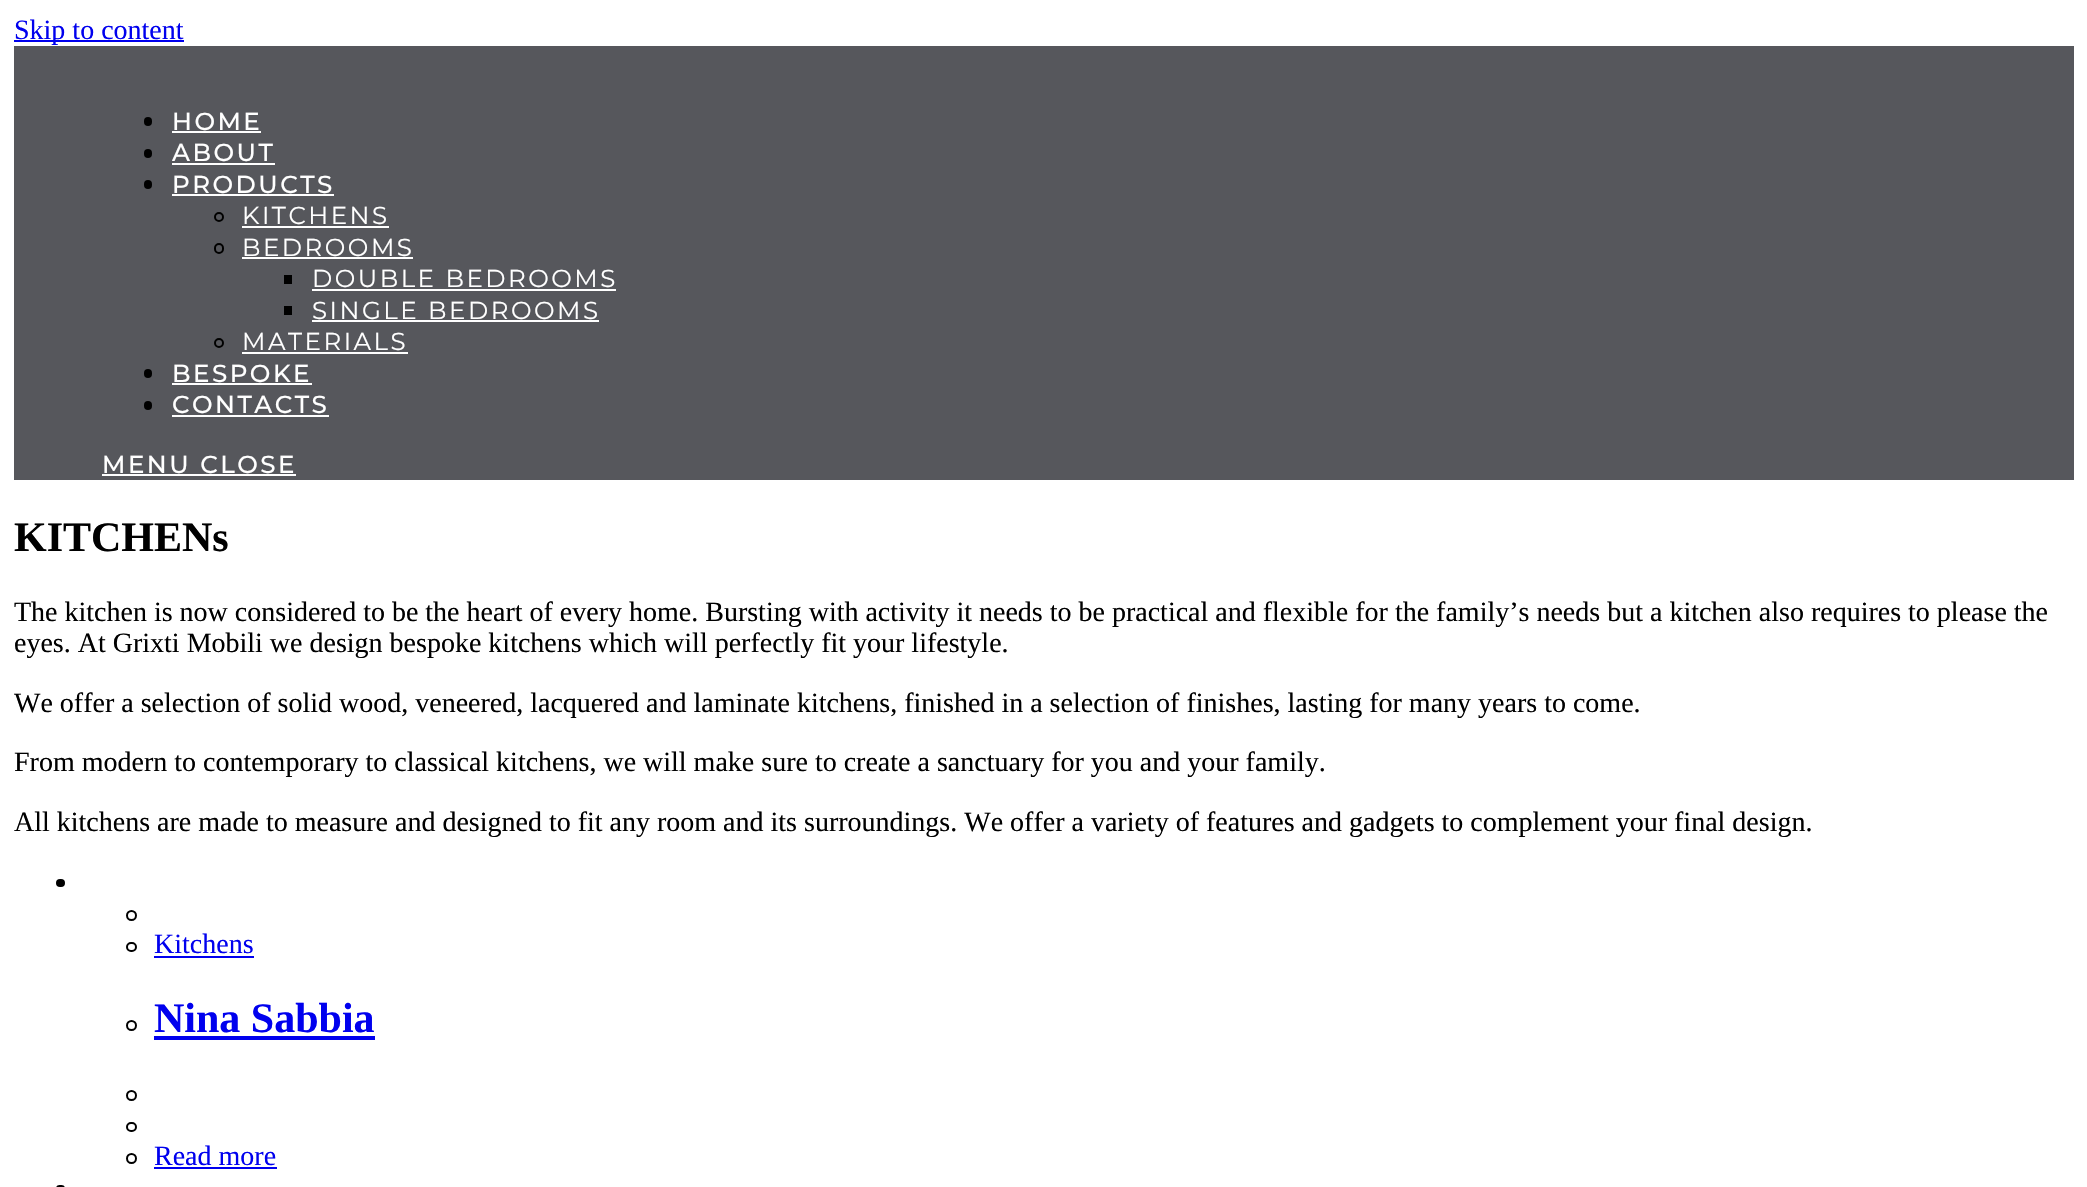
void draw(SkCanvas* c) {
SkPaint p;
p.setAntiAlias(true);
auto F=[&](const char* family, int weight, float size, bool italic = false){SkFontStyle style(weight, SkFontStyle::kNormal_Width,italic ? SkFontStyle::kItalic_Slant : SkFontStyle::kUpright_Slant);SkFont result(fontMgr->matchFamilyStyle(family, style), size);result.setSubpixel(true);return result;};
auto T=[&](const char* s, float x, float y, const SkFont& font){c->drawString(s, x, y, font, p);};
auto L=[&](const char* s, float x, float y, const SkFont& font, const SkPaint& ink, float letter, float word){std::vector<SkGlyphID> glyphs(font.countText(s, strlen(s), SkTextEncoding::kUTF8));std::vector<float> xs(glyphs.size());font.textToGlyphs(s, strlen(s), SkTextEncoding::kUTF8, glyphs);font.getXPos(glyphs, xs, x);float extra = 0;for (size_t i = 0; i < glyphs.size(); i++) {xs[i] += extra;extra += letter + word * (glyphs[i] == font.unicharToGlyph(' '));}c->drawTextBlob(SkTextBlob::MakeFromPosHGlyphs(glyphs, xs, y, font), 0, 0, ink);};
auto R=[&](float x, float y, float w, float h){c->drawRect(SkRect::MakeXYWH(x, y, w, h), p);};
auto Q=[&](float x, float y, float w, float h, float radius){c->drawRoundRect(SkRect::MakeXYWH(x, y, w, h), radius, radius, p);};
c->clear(0xffffffff);
p.setColor(0xff0000ee);
R(14,40,170,2);
auto f1 = F("Liberation Serif",400,28);
T("Skip to content",14,39,f1);
p.setColor(0xff56575c);
R(14,46,2060,434);
p.setColor(0xff000000);
Q(144,117,8,9,4);
auto f2 = F("Montserrat",500,24.5);
p.setColor(0xffffffff);
L("HOME",172,130,f2,p,2.5,0);
R(172,131,89,2);
p.setColor(0xff000000);
Q(144,149,8,9,4);
p.setColor(0xffffffff);
L("ABOUT",172,161,f2,p,2.5,0);
R(172,163,103,2);
p.setColor(0xff000000);
Q(144,180,8,9,4);
p.setColor(0xffffffff);
L("PRODUCTS",172,193,f2,p,2.5,0);
R(172,194,162,2);
p.setStroke(true);
p.setStrokeWidth(2);
p.setColor(0xff000000);
c->drawCircle(219,217,4,p);
auto f3 = F("Montserrat",400,24.5);
p.setStroke(false);
p.setColor(0xffffffff);
L("KITCHENS",242,224,f3,p,2.5,0);
R(242,226,147,2);
p.setStroke(true);
p.setColor(0xff000000);
c->drawRoundRect(SkRect::MakeXYWH(215,244,8,9),4,4,p);
p.setStroke(false);
p.setColor(0xffffffff);
L("BEDROOMS",242,256,f3,p,2.5,0);
R(242,257,171,2);
p.setColor(0xff000000);
R(284,275,8,9);
p.setColor(0xffffffff);
L("DOUBLE BEDROOMS",312,287,f3,p,2.5,0);
R(312,289,304,2);
p.setColor(0xff000000);
R(284,306,8,9);
p.setColor(0xffffffff);
L("SINGLE BEDROOMS",312,319,f3,p,2.5,0);
R(312,320,287,2);
p.setStroke(true);
p.setColor(0xff000000);
c->drawCircle(219,343,4,p);
p.setStroke(false);
p.setColor(0xffffffff);
L("MATERIALS",242,350,f3,p,2.5,0);
R(242,352,166,2);
p.setColor(0xff000000);
Q(144,369,8,9,4);
p.setColor(0xffffffff);
L("BESPOKE",172,382,f2,p,2.5,0);
R(172,383,140,2);
p.setColor(0xff000000);
Q(144,401,8,9,4);
p.setColor(0xffffffff);
L("CONTACTS",172,413,f2,p,2.5,0);
R(172,415,157,2);
L("MENU CLOSE",102,473,f2,p,2.5,0);
R(102,474,194,2);
auto f4 = F("Liberation Serif",700,42);
p.setColor(0xff000000);
T("KITCHENs",14,551,f4);
T("The kitchen is now considered to be the heart of every home. Bursting with activity it needs to be practical and flexible for the family’s needs but a kitchen also requires to please the",14,621,f1);
T("eyes. At Grixti Mobili we design bespoke kitchens which will perfectly fit your lifestyle.",14,652,f1);
T("We offer a selection of solid wood, veneered, lacquered and laminate kitchens, finished in a selection of finishes, lasting for many years to come.",14,712,f1);
T("From modern to contemporary to classical kitchens, we will make sure to create a sanctuary for you and your family.",14,771,f1);
T("All kitchens are made to measure and designed to fit any room and its surroundings. We offer a variety of features and gadgets to complement your final design.",14,831,f1);
Q(56,879,9,8,4);
p.setStroke(true);
c->drawCircle(131.5,915.5,4.5,p);
c->drawRoundRect(SkRect::MakeXYWH(127,943,9,8),4,4,p);
p.setStroke(false);
p.setColor(0xff0000ee);
T("Kitchens",154,953,f1);
R(154,956,100,2);
p.setStroke(true);
p.setColor(0xff000000);
c->drawCircle(131.5,1025.5,4.5,p);
p.setStroke(false);
p.setColor(0xff0000ee);
T("Nina Sabbia",154,1032,f4);
R(154,1036,221,4);
p.setStroke(true);
p.setColor(0xff000000);
c->drawCircle(131.5,1095.5,4.5,p);
c->drawRoundRect(SkRect::MakeXYWH(127,1123,9,8),4,4,p);
c->drawCircle(131.5,1158.5,4.5,p);
p.setStroke(false);
p.setColor(0xff0000ee);
T("Read more",154,1165,f1);
R(154,1167,123,2);
p.setColor(0xff000000);
Q(56,1185,9,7,4.5);
}
